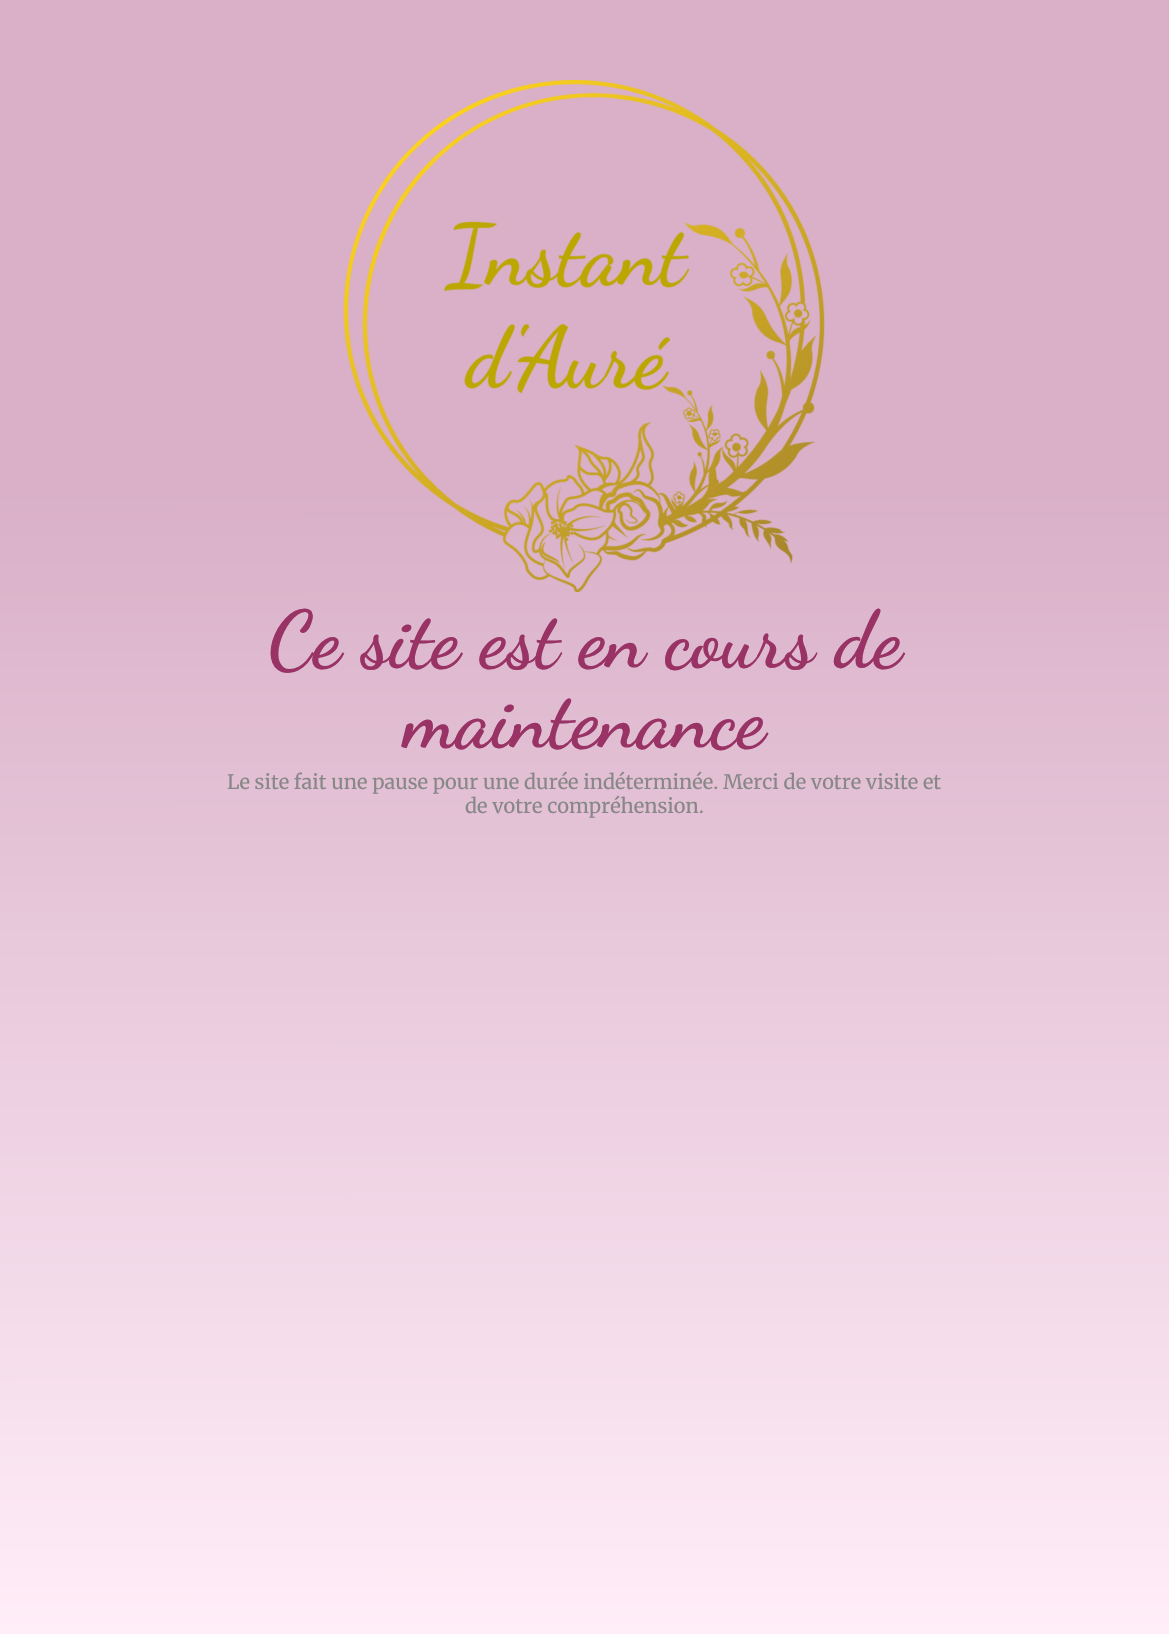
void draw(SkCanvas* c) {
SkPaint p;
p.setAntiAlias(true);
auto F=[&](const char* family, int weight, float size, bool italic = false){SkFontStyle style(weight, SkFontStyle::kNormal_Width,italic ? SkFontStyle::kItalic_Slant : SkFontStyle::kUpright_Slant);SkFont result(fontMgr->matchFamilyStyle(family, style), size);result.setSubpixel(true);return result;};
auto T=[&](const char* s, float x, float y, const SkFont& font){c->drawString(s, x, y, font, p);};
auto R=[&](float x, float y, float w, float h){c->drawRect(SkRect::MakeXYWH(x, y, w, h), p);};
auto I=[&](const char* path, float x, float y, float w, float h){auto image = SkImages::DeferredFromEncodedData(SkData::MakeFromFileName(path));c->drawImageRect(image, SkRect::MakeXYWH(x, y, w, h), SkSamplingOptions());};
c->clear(0xffffffff);
{
const SkColor colors[] = {0xffd9b0c8,0xffffedf8};
const float stops[] = {.3,1};
const SkPoint ends[] = {{584,0}, {585,1634}};
p.setShader(SkGradientShader::MakeLinear(ends, colors, stops, 2, SkTileMode::kClamp));
p.setAlpha(255);
}
R(0,0,1169,1634);
I("1.png",343,80,482,512);
auto f1 = F("Dancing Script",700,80);
p.setShader(nullptr);
p.setColor(0xff993366);
T("Ce site est en cours de",268,666,f1);
T("maintenance",404,746,f1);
auto f2 = F("Merriweather",400,20);
p.setColor(0xff888888);
T("Le site fait une pause pour une durée indéterminée. Merci de votre visite et",227,789,f2);
T("de votre compréhension.",465,813,f2);
}
